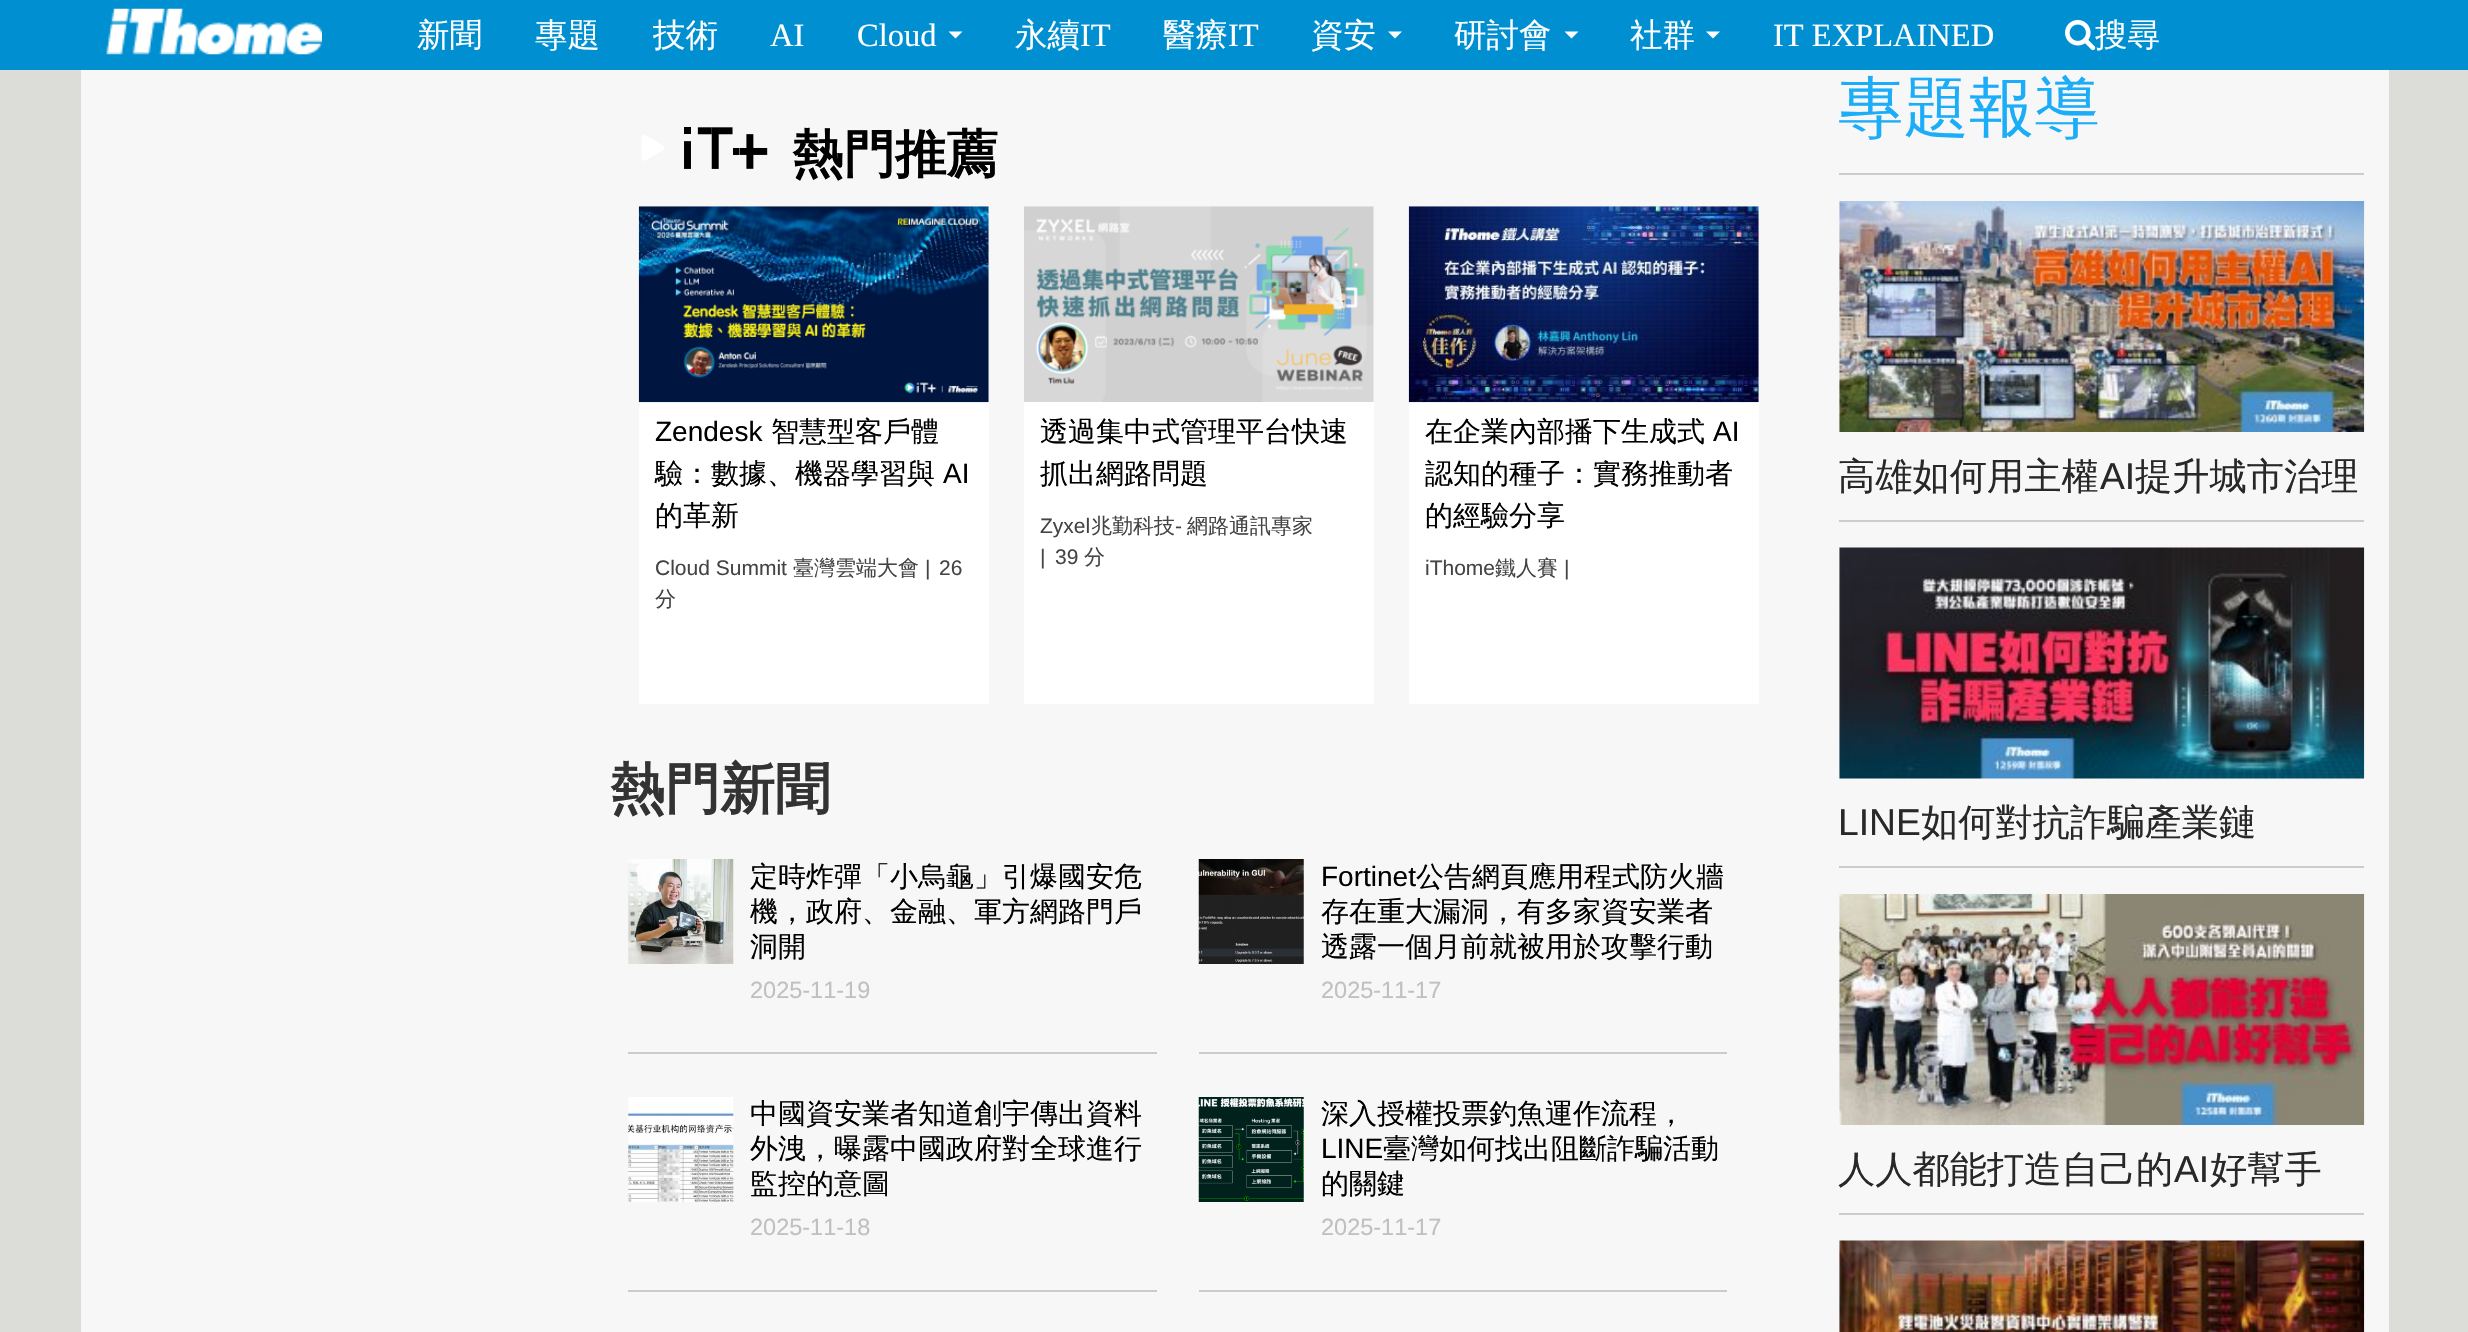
void draw(SkCanvas* c) {
SkPaint p;
p.setAntiAlias(true);
auto F=[&](const char* family, int weight, float size, bool italic = false){SkFontStyle style(weight, SkFontStyle::kNormal_Width,italic ? SkFontStyle::kItalic_Slant : SkFontStyle::kUpright_Slant);SkFont result(fontMgr->matchFamilyStyle(family, style), size);result.setSubpixel(true);return result;};
auto T=[&](const char* s, float x, float y, const SkFont& font){c->drawString(s, x, y, font, p);};
auto R=[&](float x, float y, float w, float h){c->drawRect(SkRect::MakeXYWH(x, y, w, h), p);};
auto I=[&](const char* path, float x, float y, float w, float h){auto image = SkImages::DeferredFromEncodedData(SkData::MakeFromFileName(path));c->drawImageRect(image, SkRect::MakeXYWH(x, y, w, h), SkSamplingOptions());};
auto P=[&](const char* data, bool evenOdd = false){SkPath result = *SkParsePath::FromSVGString(data);if (evenOdd) result.setFillType(SkPathFillType::kEvenOdd);return result;};
c->clear(0xffdcddd8);
p.setColor(0xff008fd1);
R(0,0,2468,70);
I("1.png",106,8,216,47);
auto f1 = F("WenQuanYi Zen Hei",500,32.5);
p.setColor(0xffffffff);
T("新聞",417,46,f1);
T("專題",535,46,f1);
T("技術",653,46,f1);
auto f2 = F("Liberation Serif",400,32.5);
T("AI",770,46,f2);
T("Cloud",857,46,f2);
c->drawPath(P("M948.5 31.5h14l-7 7z"),p);
T("永續",1015,46,f1);
T("IT",1080,46,f2);
T("醫療",1163,46,f1);
T("IT",1228,46,f2);
T("資安",1311,46,f1);
c->drawPath(P("M1388 31.5h14l-7 7z"),p);
T("研討會",1454,46,f1);
c->drawPath(P("M1564.5 31.5h14l-7 7z"),p);
T("社群",1630,46,f1);
c->drawPath(P("M1706 31.5h14l-7 7z"),p);
T("IT EXPLAINED",1773,46,f2);
I("2.png",2065,19,31,32);
T("搜尋",2095,46,f1);
p.setColor(0xfff7f7f7);
R(81,70,2308,1262);
I("3.png",641,127,127,42);
auto f3 = F("WenQuanYi Zen Hei",700,51.5);
p.setColor(0xff000000);
T("熱門推薦",792,172,f3);
p.setColor(0xffffffff);
R(639,207,350,497);
I("4.png",638,206,351,197);
auto f4 = F("Liberation Sans",400,28);
p.setColor(0xff000000);
T("Zendesk",655,441,f4);
auto f5 = F("WenQuanYi Zen Hei",500,28);
T("智慧型客戶體",771,441,f5);
T("驗：數據、機器學習與",655,483,f5);
T("AI",943,483,f4);
T("的革新",655,525,f5);
auto f6 = F("Liberation Sans",400,21);
p.setColor(0xff444444);
T("Cloud Summit",655,575,f6);
auto f7 = F("WenQuanYi Zen Hei",500,21);
T("臺灣雲端大會",793,575,f7);
T("|",925,575,f6);
T("26",939,575,f6);
T("分",655,606,f7);
p.setColor(0xffffffff);
R(1024,207,350,497);
I("5.png",1024,206,350,196);
p.setColor(0xff000000);
T("透過集中式管理平台快速",1040,441,f5);
T("抓出網路問題",1040,483,f5);
p.setColor(0xff444444);
T("Zyxel",1040,533,f6);
T("兆勤科技",1091,533,f7);
T("-",1175,533,f6);
T("網路通訊專家",1187,533,f7);
T("|",1040,564,f6);
T("39",1055,564,f6);
T("分",1084,564,f7);
p.setColor(0xffffffff);
R(1409,207,350,497);
I("6.png",1408,206,351,197);
p.setColor(0xff000000);
T("在企業內部播下生成式",1425,441,f5);
T("AI",1713,441,f4);
T("認知的種子：實務推動者",1425,483,f5);
T("的經驗分享",1425,525,f5);
p.setColor(0xff444444);
T("iThome",1425,575,f6);
T("鐵人賽",1495,575,f7);
T("|",1564,575,f6);
auto f8 = F("WenQuanYi Zen Hei",700,55);
p.setColor(0xff333333);
T("熱門新聞",610,808,f8);
p.setColor(0xffcccccc);
R(628,1052,529,2);
I("7.png",628,859,106,105);
p.setColor(0xff000000);
T("定時炸彈「小烏龜」引爆國安危",750,886,f5);
T("機，政府、金融、軍方網路門戶",750,921,f5);
T("洞開",750,956,f5);
auto f9 = F("Liberation Sans",400,23.5);
p.setColor(0xffc0c0c0);
T("2025-11-19",750,998,f9);
p.setColor(0xffcccccc);
R(1199,1052,528,2);
I("8.png",1198,859,106,105);
p.setColor(0xff000000);
T("Fortinet",1321,886,f4);
T("公告網頁應用程式防火牆",1416,886,f5);
T("存在重大漏洞，有多家資安業者",1321,921,f5);
T("透露一個月前就被用於攻擊行動",1321,956,f5);
p.setColor(0xffc0c0c0);
T("2025-11-17",1321,998,f9);
p.setColor(0xffcccccc);
R(628,1290,529,2);
I("9.png",628,1097,106,105);
p.setColor(0xff000000);
T("中國資安業者知道創宇傳出資料",750,1123,f5);
T("外洩，曝露中國政府對全球進行",750,1158,f5);
T("監控的意圖",750,1193,f5);
p.setColor(0xffc0c0c0);
T("2025-11-18",750,1235,f9);
p.setColor(0xffcccccc);
R(1199,1290,528,2);
I("10.png",1198,1097,106,105);
p.setColor(0xff000000);
T("深入授權投票釣魚運作流程，",1321,1123,f5);
T("LINE",1321,1158,f4);
T("臺灣如何找出阻斷詐騙活動",1383,1158,f5);
T("的關鍵",1321,1193,f5);
p.setColor(0xffc0c0c0);
T("2025-11-17",1321,1235,f9);
p.setColor(0xffcccccc);
R(1839,173,525,2);
auto f10 = F("WenQuanYi Zen Hei",500,65.5);
p.setColor(0xff1badf8);
T("專題報導",1838,130,f10);
p.setColor(0xffcccccc);
R(1839,520,525,2);
I("11.png",1839,201,526,231);
auto f11 = F("WenQuanYi Zen Hei",500,37.25);
p.setColor(0xff282828);
T("高雄如何用主權",1838,489,f11);
auto f12 = F("Liberation Sans",400,37.25);
T("AI",2100,489,f12);
T("提升城市治理",2135,489,f11);
p.setColor(0xffcccccc);
R(1839,866,525,2);
I("12.png",1839,547,526,232);
p.setColor(0xff282828);
T("LINE",1838,835,f12);
T("如何對抗詐騙產業鏈",1921,835,f11);
p.setColor(0xffcccccc);
R(1839,1213,525,2);
I("13.png",1839,894,526,231);
p.setColor(0xff282828);
T("人人都能打造自己的",1838,1182,f11);
T("AI",2174,1182,f12);
T("好幫手",2210,1182,f11);
I("14.png",1839,1240,526,92);
}
